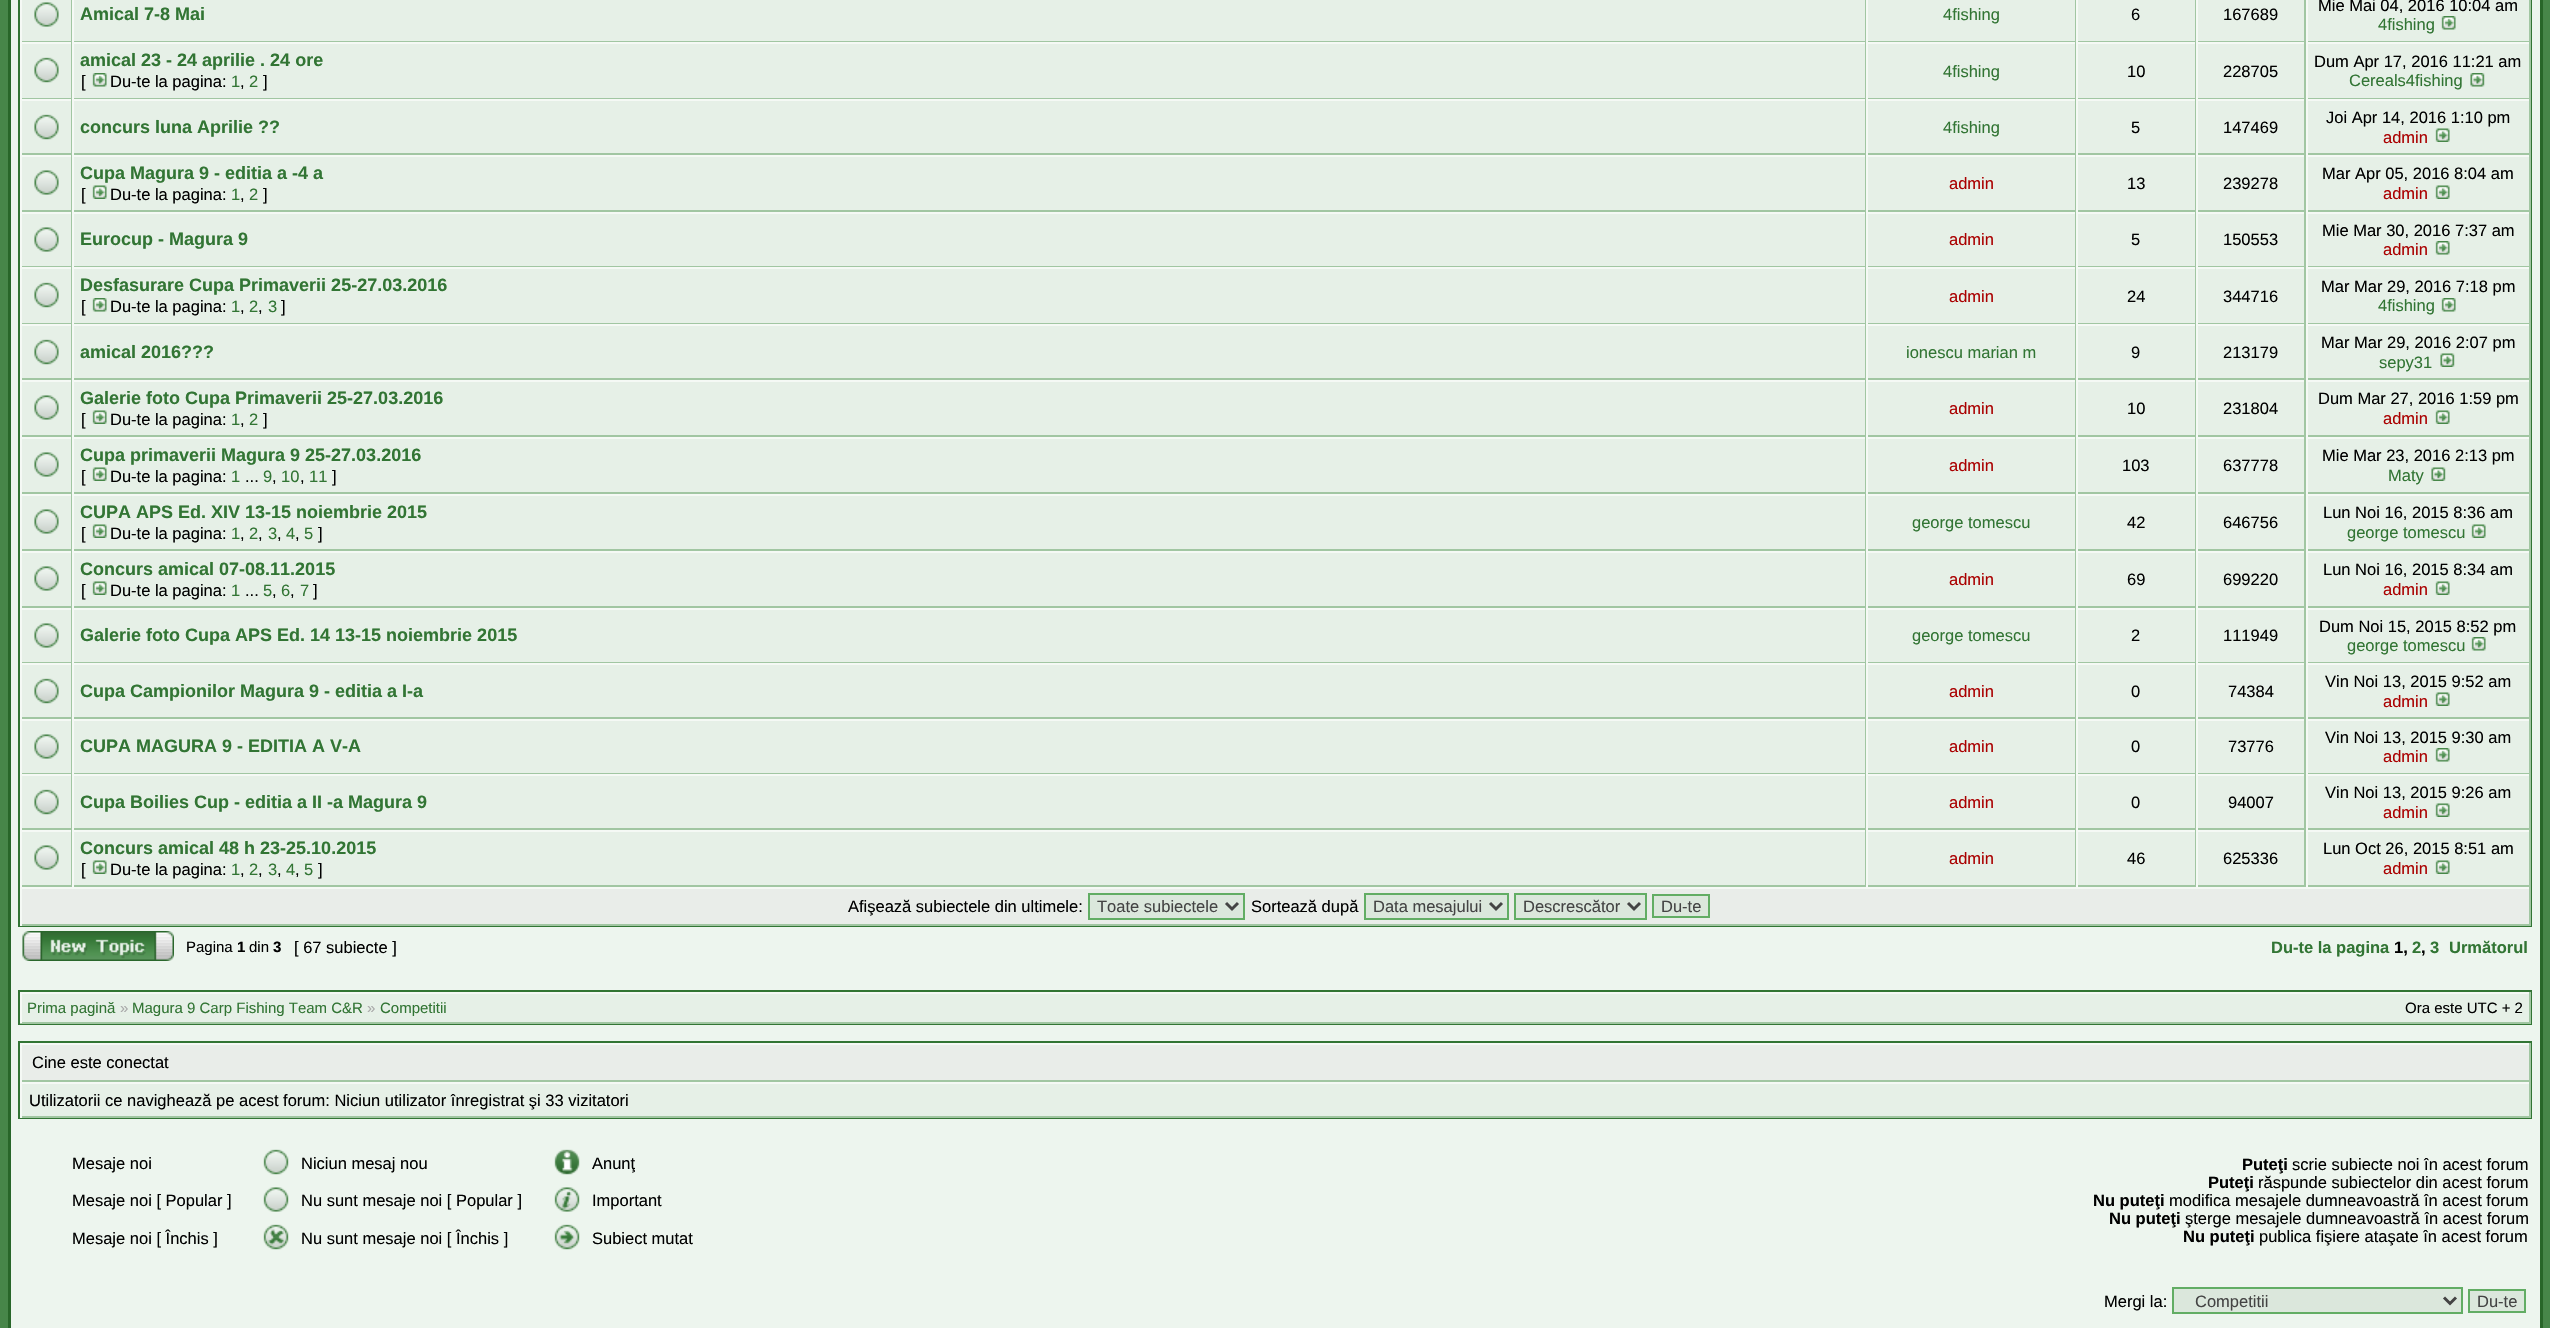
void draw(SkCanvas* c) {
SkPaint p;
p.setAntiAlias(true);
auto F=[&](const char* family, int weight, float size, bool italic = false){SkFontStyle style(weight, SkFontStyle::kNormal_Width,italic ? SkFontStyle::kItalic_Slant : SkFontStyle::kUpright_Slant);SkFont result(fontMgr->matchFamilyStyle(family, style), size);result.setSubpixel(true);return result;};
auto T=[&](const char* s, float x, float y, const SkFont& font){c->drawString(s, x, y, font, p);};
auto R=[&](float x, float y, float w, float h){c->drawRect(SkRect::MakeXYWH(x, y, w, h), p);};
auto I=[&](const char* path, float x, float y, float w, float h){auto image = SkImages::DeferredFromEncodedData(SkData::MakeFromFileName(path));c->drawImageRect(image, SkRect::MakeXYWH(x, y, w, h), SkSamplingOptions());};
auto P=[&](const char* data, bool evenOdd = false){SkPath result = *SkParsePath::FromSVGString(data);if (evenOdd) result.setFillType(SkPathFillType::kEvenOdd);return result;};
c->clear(0xff478649);
p.setColor(0xff286629);
R(2540,0,3,1328);
R(8,0,3,1328);
p.setColor(0xffedf5ee);
R(11,0,2529,1328);
p.setColor(0xffe6f0e7);
R(22,0,49,885);
p.setStroke(true);
p.setStrokeWidth(2);
p.setColor(0xff327534);
c->drawRect(SkRect::MakeXYWH(19,-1,2512,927),p);
p.setStroke(false);
p.setColor(0xffa1c6a2);
R(71,0,1,42);
R(20,41,52,1);
p.setColor(0xfff5f9f5);
R(20,0,2,42);
I("1.png",34,2,25,25);
p.setColor(0xffe6f0e7);
R(74,0,1791,41);
p.setColor(0xffa1c6a2);
R(1865,0,1,42);
R(72,41,1794,1);
p.setColor(0xfff5f9f5);
R(72,0,2,42);
auto f1 = F("Liberation Sans",700,18);
p.setColor(0xff327534);
T("Amical 7-8 Mai",80,20,f1);
p.setColor(0xffe6f0e7);
R(1868,0,207,41);
p.setColor(0xffa1c6a2);
R(2075,0,1,42);
R(1866,41,210,1);
p.setColor(0xfff5f9f5);
R(1866,0,2,42);
auto f2 = F("Liberation Sans",400,16.5);
p.setColor(0xff327534);
T("4fishing",1943,20,f2);
p.setColor(0xffe6f0e7);
R(2078,0,117,41);
p.setColor(0xffa1c6a2);
R(2195,0,1,42);
R(2076,41,120,1);
p.setColor(0xfff5f9f5);
R(2076,0,2,42);
p.setColor(0xff000000);
T("6",2131,20,f2);
p.setColor(0xffe6f0e7);
R(2198,0,106,41);
p.setColor(0xffa1c6a2);
R(2304,0,2,42);
R(2196,41,110,1);
p.setColor(0xfff5f9f5);
R(2196,0,2,42);
p.setColor(0xff000000);
T("167689",2223,20,f2);
p.setColor(0xffe6f0e7);
R(2308,0,221,41);
p.setColor(0xffa1c6a2);
R(2529,0,2,42);
R(2306,41,225,1);
p.setColor(0xfff5f9f5);
R(2306,0,2,42);
p.setColor(0xff000000);
T("Mie Mai 04, 2016 10:04 am",2318,11,f2);
p.setColor(0xff327534);
T("4fishing",2378,30,f2);
I("2.png",2441,16,15,14);
p.setColor(0xfff5f9f5);
R(20,42,2511,2);
p.setColor(0xffa1c6a2);
R(71,42,1,57);
R(20,98,52,1);
p.setColor(0xfff5f9f5);
R(20,42,2,57);
I("3.png",34,57,25,26);
p.setColor(0xffe6f0e7);
R(74,44,1791,54);
p.setColor(0xffa1c6a2);
R(1865,42,1,57);
R(72,98,1794,1);
p.setColor(0xfff5f9f5);
R(72,42,2,57);
p.setColor(0xff327534);
T("amical 23 - 24 aprilie . 24 ore",80,66,f1);
p.setColor(0xff000000);
T("[",81,87,f2);
I("2.png",92,73,15,14);
T("Du-te la pagina:",110,87,f2);
p.setColor(0xff327534);
T("1",231,87,f2);
p.setColor(0xff000000);
T(",",240,87,f2);
p.setColor(0xff327534);
T("2",249,87,f2);
p.setColor(0xff000000);
T("]",263,87,f2);
p.setColor(0xffe6f0e7);
R(1868,44,207,54);
p.setColor(0xffa1c6a2);
R(2075,42,1,57);
R(1866,98,210,1);
p.setColor(0xfff5f9f5);
R(1866,42,2,57);
p.setColor(0xff327534);
T("4fishing",1943,77,f2);
p.setColor(0xffe6f0e7);
R(2078,44,117,54);
p.setColor(0xffa1c6a2);
R(2195,42,1,57);
R(2076,98,120,1);
p.setColor(0xfff5f9f5);
R(2076,42,2,57);
p.setColor(0xff000000);
T("10",2127,77,f2);
p.setColor(0xffe6f0e7);
R(2198,44,106,54);
p.setColor(0xffa1c6a2);
R(2304,42,2,57);
R(2196,98,110,1);
p.setColor(0xfff5f9f5);
R(2196,42,2,57);
p.setColor(0xff000000);
T("228705",2223,77,f2);
p.setColor(0xffe6f0e7);
R(2308,44,221,54);
p.setColor(0xffa1c6a2);
R(2529,42,2,57);
R(2306,98,225,1);
p.setColor(0xfff5f9f5);
R(2306,42,2,57);
p.setColor(0xff000000);
T("Dum Apr 17, 2016 11:21 am",2314,67,f2);
p.setColor(0xff327534);
T("Cereals4fishing",2349,86,f2);
I("4.png",2470,73,15,14);
p.setColor(0xfff5f9f5);
R(20,99,2511,2);
p.setColor(0xffa1c6a2);
R(71,99,1,56);
R(20,153,52,2);
p.setColor(0xfff5f9f5);
R(20,99,2,56);
I("3.png",34,114,25,26);
p.setColor(0xffe6f0e7);
R(74,101,1791,52);
p.setColor(0xffa1c6a2);
R(1865,99,1,56);
R(72,153,1794,2);
p.setColor(0xfff5f9f5);
R(72,99,2,56);
p.setColor(0xff327534);
T("concurs luna Aprilie ?\077",80,133,f1);
p.setColor(0xffe6f0e7);
R(1868,101,207,52);
p.setColor(0xffa1c6a2);
R(2075,99,1,56);
R(1866,153,210,2);
p.setColor(0xfff5f9f5);
R(1866,99,2,56);
p.setColor(0xff327534);
T("4fishing",1943,133,f2);
p.setColor(0xffe6f0e7);
R(2078,101,117,52);
p.setColor(0xffa1c6a2);
R(2195,99,1,56);
R(2076,153,120,2);
p.setColor(0xfff5f9f5);
R(2076,99,2,56);
p.setColor(0xff000000);
T("5",2131,133,f2);
p.setColor(0xffe6f0e7);
R(2198,101,106,52);
p.setColor(0xffa1c6a2);
R(2304,99,2,56);
R(2196,153,110,2);
p.setColor(0xfff5f9f5);
R(2196,99,2,56);
p.setColor(0xff000000);
T("147469",2223,133,f2);
p.setColor(0xffe6f0e7);
R(2308,101,221,52);
p.setColor(0xffa1c6a2);
R(2529,99,2,56);
R(2306,153,225,2);
p.setColor(0xfff5f9f5);
R(2306,99,2,56);
p.setColor(0xff000000);
T("Joi Apr 14, 2016 1:10 pm",2326,123,f2);
p.setColor(0xffaa0000);
T("admin",2383,143,f2);
I("5.png",2435,128,15,14);
p.setColor(0xfff5f9f5);
R(20,155,2511,2);
p.setColor(0xffa1c6a2);
R(71,155,1,57);
R(20,210,52,2);
p.setColor(0xfff5f9f5);
R(20,155,2,57);
I("1.png",34,170,25,25);
p.setColor(0xffe6f0e7);
R(74,157,1791,53);
p.setColor(0xffa1c6a2);
R(1865,155,1,57);
R(72,210,1794,2);
p.setColor(0xfff5f9f5);
R(72,155,2,57);
p.setColor(0xff327534);
T("Cupa Magura 9 - editia a -4 a",80,179,f1);
p.setColor(0xff000000);
T("[",81,200,f2);
I("5.png",92,185,15,14);
T("Du-te la pagina:",110,200,f2);
p.setColor(0xff327534);
T("1",231,200,f2);
p.setColor(0xff000000);
T(",",240,200,f2);
p.setColor(0xff327534);
T("2",249,200,f2);
p.setColor(0xff000000);
T("]",263,200,f2);
p.setColor(0xffe6f0e7);
R(1868,157,207,53);
p.setColor(0xffa1c6a2);
R(2075,155,1,57);
R(1866,210,210,2);
p.setColor(0xfff5f9f5);
R(1866,155,2,57);
p.setColor(0xffaa0000);
T("admin",1949,189,f2);
p.setColor(0xffe6f0e7);
R(2078,157,117,53);
p.setColor(0xffa1c6a2);
R(2195,155,1,57);
R(2076,210,120,2);
p.setColor(0xfff5f9f5);
R(2076,155,2,57);
p.setColor(0xff000000);
T("13",2127,189,f2);
p.setColor(0xffe6f0e7);
R(2198,157,106,53);
p.setColor(0xffa1c6a2);
R(2304,155,2,57);
R(2196,210,110,2);
p.setColor(0xfff5f9f5);
R(2196,155,2,57);
p.setColor(0xff000000);
T("239278",2223,189,f2);
p.setColor(0xffe6f0e7);
R(2308,157,221,53);
p.setColor(0xffa1c6a2);
R(2529,155,2,57);
R(2306,210,225,2);
p.setColor(0xfff5f9f5);
R(2306,155,2,57);
p.setColor(0xff000000);
T("Mar Apr 05, 2016 8:04 am",2322,179,f2);
p.setColor(0xffaa0000);
T("admin",2383,199,f2);
I("5.png",2435,185,15,14);
p.setColor(0xfff5f9f5);
R(20,212,2511,2);
p.setColor(0xffa1c6a2);
R(71,212,1,55);
R(20,266,52,1);
p.setColor(0xfff5f9f5);
R(20,212,2,55);
I("1.png",34,227,25,25);
p.setColor(0xffe6f0e7);
R(74,214,1791,52);
p.setColor(0xffa1c6a2);
R(1865,212,1,55);
R(72,266,1794,1);
p.setColor(0xfff5f9f5);
R(72,212,2,55);
p.setColor(0xff327534);
T("Eurocup - Magura 9",80,245,f1);
p.setColor(0xffe6f0e7);
R(1868,214,207,52);
p.setColor(0xffa1c6a2);
R(2075,212,1,55);
R(1866,266,210,1);
p.setColor(0xfff5f9f5);
R(1866,212,2,55);
p.setColor(0xffaa0000);
T("admin",1949,245,f2);
p.setColor(0xffe6f0e7);
R(2078,214,117,52);
p.setColor(0xffa1c6a2);
R(2195,212,1,55);
R(2076,266,120,1);
p.setColor(0xfff5f9f5);
R(2076,212,2,55);
p.setColor(0xff000000);
T("5",2131,245,f2);
p.setColor(0xffe6f0e7);
R(2198,214,106,52);
p.setColor(0xffa1c6a2);
R(2304,212,2,55);
R(2196,266,110,1);
p.setColor(0xfff5f9f5);
R(2196,212,2,55);
p.setColor(0xff000000);
T("150553",2223,245,f2);
p.setColor(0xffe6f0e7);
R(2308,214,221,52);
p.setColor(0xffa1c6a2);
R(2529,212,2,55);
R(2306,266,225,1);
p.setColor(0xfff5f9f5);
R(2306,212,2,55);
p.setColor(0xff000000);
T("Mie Mar 30, 2016 7:37 am",2322,236,f2);
p.setColor(0xffaa0000);
T("admin",2383,255,f2);
I("2.png",2435,241,15,14);
p.setColor(0xfff5f9f5);
R(20,267,2511,2);
p.setColor(0xffa1c6a2);
R(71,267,1,57);
R(20,323,52,1);
p.setColor(0xfff5f9f5);
R(20,267,2,57);
I("3.png",34,282,25,26);
p.setColor(0xffe6f0e7);
R(74,269,1791,54);
p.setColor(0xffa1c6a2);
R(1865,267,1,57);
R(72,323,1794,1);
p.setColor(0xfff5f9f5);
R(72,267,2,57);
p.setColor(0xff327534);
T("Desfasurare Cupa Primaverii 25-27.03.2016",80,291,f1);
p.setColor(0xff000000);
T("[",81,312,f2);
I("2.png",92,298,15,14);
T("Du-te la pagina:",110,312,f2);
p.setColor(0xff327534);
T("1",231,312,f2);
p.setColor(0xff000000);
T(",",240,312,f2);
p.setColor(0xff327534);
T("2",249,312,f2);
p.setColor(0xff000000);
T(",",258,312,f2);
p.setColor(0xff327534);
T("3",268,312,f2);
p.setColor(0xff000000);
T("]",281,312,f2);
p.setColor(0xffe6f0e7);
R(1868,269,207,54);
p.setColor(0xffa1c6a2);
R(2075,267,1,57);
R(1866,323,210,1);
p.setColor(0xfff5f9f5);
R(1866,267,2,57);
p.setColor(0xffaa0000);
T("admin",1949,302,f2);
p.setColor(0xffe6f0e7);
R(2078,269,117,54);
p.setColor(0xffa1c6a2);
R(2195,267,1,57);
R(2076,323,120,1);
p.setColor(0xfff5f9f5);
R(2076,267,2,57);
p.setColor(0xff000000);
T("24",2127,302,f2);
p.setColor(0xffe6f0e7);
R(2198,269,106,54);
p.setColor(0xffa1c6a2);
R(2304,267,2,57);
R(2196,323,110,1);
p.setColor(0xfff5f9f5);
R(2196,267,2,57);
p.setColor(0xff000000);
T("344716",2223,302,f2);
p.setColor(0xffe6f0e7);
R(2308,269,221,54);
p.setColor(0xffa1c6a2);
R(2529,267,2,57);
R(2306,323,225,1);
p.setColor(0xfff5f9f5);
R(2306,267,2,57);
p.setColor(0xff000000);
T("Mar Mar 29, 2016 7:18 pm",2321,292,f2);
p.setColor(0xff327534);
T("4fishing",2378,311,f2);
I("2.png",2441,298,15,14);
p.setColor(0xfff5f9f5);
R(20,324,2511,2);
p.setColor(0xffa1c6a2);
R(71,324,1,56);
R(20,378,52,2);
p.setColor(0xfff5f9f5);
R(20,324,2,56);
I("3.png",34,339,25,26);
p.setColor(0xffe6f0e7);
R(74,326,1791,52);
p.setColor(0xffa1c6a2);
R(1865,324,1,56);
R(72,378,1794,2);
p.setColor(0xfff5f9f5);
R(72,324,2,56);
p.setColor(0xff327534);
T("amical 2016?\077?",80,358,f1);
p.setColor(0xffe6f0e7);
R(1868,326,207,52);
p.setColor(0xffa1c6a2);
R(2075,324,1,56);
R(1866,378,210,2);
p.setColor(0xfff5f9f5);
R(1866,324,2,56);
p.setColor(0xff327534);
T("ionescu marian m",1906,358,f2);
p.setColor(0xffe6f0e7);
R(2078,326,117,52);
p.setColor(0xffa1c6a2);
R(2195,324,1,56);
R(2076,378,120,2);
p.setColor(0xfff5f9f5);
R(2076,324,2,56);
p.setColor(0xff000000);
T("9",2131,358,f2);
p.setColor(0xffe6f0e7);
R(2198,326,106,52);
p.setColor(0xffa1c6a2);
R(2304,324,2,56);
R(2196,378,110,2);
p.setColor(0xfff5f9f5);
R(2196,324,2,56);
p.setColor(0xff000000);
T("213179",2223,358,f2);
p.setColor(0xffe6f0e7);
R(2308,326,221,52);
p.setColor(0xffa1c6a2);
R(2529,324,2,56);
R(2306,378,225,2);
p.setColor(0xfff5f9f5);
R(2306,324,2,56);
p.setColor(0xff000000);
T("Mar Mar 29, 2016 2:07 pm",2321,348,f2);
p.setColor(0xff327534);
T("sepy31",2379,368,f2);
I("6.png",2440,353,15,14);
p.setColor(0xfff5f9f5);
R(20,380,2511,2);
p.setColor(0xffa1c6a2);
R(71,380,1,57);
R(20,435,52,2);
p.setColor(0xfff5f9f5);
R(20,380,2,57);
I("1.png",34,395,25,25);
p.setColor(0xffe6f0e7);
R(74,382,1791,53);
p.setColor(0xffa1c6a2);
R(1865,380,1,57);
R(72,435,1794,2);
p.setColor(0xfff5f9f5);
R(72,380,2,57);
p.setColor(0xff327534);
T("Galerie foto Cupa Primaverii 25-27.03.2016",80,404,f1);
p.setColor(0xff000000);
T("[",81,425,f2);
I("5.png",92,410,15,14);
T("Du-te la pagina:",110,425,f2);
p.setColor(0xff327534);
T("1",231,425,f2);
p.setColor(0xff000000);
T(",",240,425,f2);
p.setColor(0xff327534);
T("2",249,425,f2);
p.setColor(0xff000000);
T("]",263,425,f2);
p.setColor(0xffe6f0e7);
R(1868,382,207,53);
p.setColor(0xffa1c6a2);
R(2075,380,1,57);
R(1866,435,210,2);
p.setColor(0xfff5f9f5);
R(1866,380,2,57);
p.setColor(0xffaa0000);
T("admin",1949,414,f2);
p.setColor(0xffe6f0e7);
R(2078,382,117,53);
p.setColor(0xffa1c6a2);
R(2195,380,1,57);
R(2076,435,120,2);
p.setColor(0xfff5f9f5);
R(2076,380,2,57);
p.setColor(0xff000000);
T("10",2127,414,f2);
p.setColor(0xffe6f0e7);
R(2198,382,106,53);
p.setColor(0xffa1c6a2);
R(2304,380,2,57);
R(2196,435,110,2);
p.setColor(0xfff5f9f5);
R(2196,380,2,57);
p.setColor(0xff000000);
T("231804",2223,414,f2);
p.setColor(0xffe6f0e7);
R(2308,382,221,53);
p.setColor(0xffa1c6a2);
R(2529,380,2,57);
R(2306,435,225,2);
p.setColor(0xfff5f9f5);
R(2306,380,2,57);
p.setColor(0xff000000);
T("Dum Mar 27, 2016 1:59 pm",2318,404,f2);
p.setColor(0xffaa0000);
T("admin",2383,424,f2);
I("5.png",2435,410,15,14);
p.setColor(0xfff5f9f5);
R(20,437,2511,2);
p.setColor(0xffa1c6a2);
R(71,437,1,57);
R(20,492,52,2);
p.setColor(0xfff5f9f5);
R(20,437,2,57);
I("1.png",34,452,25,25);
p.setColor(0xffe6f0e7);
R(74,439,1791,53);
p.setColor(0xffa1c6a2);
R(1865,437,1,57);
R(72,492,1794,2);
p.setColor(0xfff5f9f5);
R(72,437,2,57);
p.setColor(0xff327534);
T("Cupa primaverii Magura 9 25-27.03.2016",80,461,f1);
p.setColor(0xff000000);
T("[",81,482,f2);
I("5.png",92,467,15,14);
T("Du-te la pagina:",110,482,f2);
p.setColor(0xff327534);
T("1",231,482,f2);
p.setColor(0xff000000);
T("...",245,482,f2);
p.setColor(0xff327534);
T("9",263,482,f2);
p.setColor(0xff000000);
T(",",272,482,f2);
p.setColor(0xff327534);
T("10",281,482,f2);
p.setColor(0xff000000);
T(",",300,482,f2);
p.setColor(0xff327534);
T("11",309,482,f2);
p.setColor(0xff000000);
T("]",332,482,f2);
p.setColor(0xffe6f0e7);
R(1868,439,207,53);
p.setColor(0xffa1c6a2);
R(2075,437,1,57);
R(1866,492,210,2);
p.setColor(0xfff5f9f5);
R(1866,437,2,57);
p.setColor(0xffaa0000);
T("admin",1949,471,f2);
p.setColor(0xffe6f0e7);
R(2078,439,117,53);
p.setColor(0xffa1c6a2);
R(2195,437,1,57);
R(2076,492,120,2);
p.setColor(0xfff5f9f5);
R(2076,437,2,57);
p.setColor(0xff000000);
T("103",2122,471,f2);
p.setColor(0xffe6f0e7);
R(2198,439,106,53);
p.setColor(0xffa1c6a2);
R(2304,437,2,57);
R(2196,492,110,2);
p.setColor(0xfff5f9f5);
R(2196,437,2,57);
p.setColor(0xff000000);
T("637778",2223,471,f2);
p.setColor(0xffe6f0e7);
R(2308,439,221,53);
p.setColor(0xffa1c6a2);
R(2529,437,2,57);
R(2306,492,225,2);
p.setColor(0xfff5f9f5);
R(2306,437,2,57);
p.setColor(0xff000000);
T("Mie Mar 23, 2016 2:13 pm",2322,461,f2);
p.setColor(0xff327534);
T("Maty",2388,481,f2);
I("6.png",2431,467,15,14);
p.setColor(0xfff5f9f5);
R(20,494,2511,2);
p.setColor(0xffa1c6a2);
R(71,494,1,57);
R(20,549,52,2);
p.setColor(0xfff5f9f5);
R(20,494,2,57);
I("1.png",34,509,25,25);
p.setColor(0xffe6f0e7);
R(74,496,1791,53);
p.setColor(0xffa1c6a2);
R(1865,494,1,57);
R(72,549,1794,2);
p.setColor(0xfff5f9f5);
R(72,494,2,57);
p.setColor(0xff327534);
T("CUPA APS Ed. XIV 13-15 noiembrie 2015",80,518,f1);
p.setColor(0xff000000);
T("[",81,539,f2);
I("5.png",92,524,15,14);
T("Du-te la pagina:",110,539,f2);
p.setColor(0xff327534);
T("1",231,539,f2);
p.setColor(0xff000000);
T(",",240,539,f2);
p.setColor(0xff327534);
T("2",249,539,f2);
p.setColor(0xff000000);
T(",",258,539,f2);
p.setColor(0xff327534);
T("3",268,539,f2);
p.setColor(0xff000000);
T(",",277,539,f2);
p.setColor(0xff327534);
T("4",286,539,f2);
p.setColor(0xff000000);
T(",",295,539,f2);
p.setColor(0xff327534);
T("5",304,539,f2);
p.setColor(0xff000000);
T("]",318,539,f2);
p.setColor(0xffe6f0e7);
R(1868,496,207,53);
p.setColor(0xffa1c6a2);
R(2075,494,1,57);
R(1866,549,210,2);
p.setColor(0xfff5f9f5);
R(1866,494,2,57);
p.setColor(0xff327534);
T("george tomescu",1912,528,f2);
p.setColor(0xffe6f0e7);
R(2078,496,117,53);
p.setColor(0xffa1c6a2);
R(2195,494,1,57);
R(2076,549,120,2);
p.setColor(0xfff5f9f5);
R(2076,494,2,57);
p.setColor(0xff000000);
T("42",2127,528,f2);
p.setColor(0xffe6f0e7);
R(2198,496,106,53);
p.setColor(0xffa1c6a2);
R(2304,494,2,57);
R(2196,549,110,2);
p.setColor(0xfff5f9f5);
R(2196,494,2,57);
p.setColor(0xff000000);
T("646756",2223,528,f2);
p.setColor(0xffe6f0e7);
R(2308,496,221,53);
p.setColor(0xffa1c6a2);
R(2529,494,2,57);
R(2306,549,225,2);
p.setColor(0xfff5f9f5);
R(2306,494,2,57);
p.setColor(0xff000000);
T("Lun Noi 16, 2015 8:36 am",2323,518,f2);
p.setColor(0xff327534);
T("george tomescu",2347,538,f2);
I("5.png",2471,524,15,14);
p.setColor(0xfff5f9f5);
R(20,551,2511,2);
p.setColor(0xffa1c6a2);
R(71,551,1,57);
R(20,606,52,2);
p.setColor(0xfff5f9f5);
R(20,551,2,57);
I("1.png",34,566,25,25);
p.setColor(0xffe6f0e7);
R(74,553,1791,53);
p.setColor(0xffa1c6a2);
R(1865,551,1,57);
R(72,606,1794,2);
p.setColor(0xfff5f9f5);
R(72,551,2,57);
p.setColor(0xff327534);
T("Concurs amical 07-08.11.2015",80,575,f1);
p.setColor(0xff000000);
T("[",81,596,f2);
I("5.png",92,581,15,14);
T("Du-te la pagina:",110,596,f2);
p.setColor(0xff327534);
T("1",231,596,f2);
p.setColor(0xff000000);
T("...",245,596,f2);
p.setColor(0xff327534);
T("5",263,596,f2);
p.setColor(0xff000000);
T(",",272,596,f2);
p.setColor(0xff327534);
T("6",281,596,f2);
p.setColor(0xff000000);
T(",",290,596,f2);
p.setColor(0xff327534);
T("7",300,596,f2);
p.setColor(0xff000000);
T("]",313,596,f2);
p.setColor(0xffe6f0e7);
R(1868,553,207,53);
p.setColor(0xffa1c6a2);
R(2075,551,1,57);
R(1866,606,210,2);
p.setColor(0xfff5f9f5);
R(1866,551,2,57);
p.setColor(0xffaa0000);
T("admin",1949,585,f2);
p.setColor(0xffe6f0e7);
R(2078,553,117,53);
p.setColor(0xffa1c6a2);
R(2195,551,1,57);
R(2076,606,120,2);
p.setColor(0xfff5f9f5);
R(2076,551,2,57);
p.setColor(0xff000000);
T("69",2127,585,f2);
p.setColor(0xffe6f0e7);
R(2198,553,106,53);
p.setColor(0xffa1c6a2);
R(2304,551,2,57);
R(2196,606,110,2);
p.setColor(0xfff5f9f5);
R(2196,551,2,57);
p.setColor(0xff000000);
T("699220",2223,585,f2);
p.setColor(0xffe6f0e7);
R(2308,553,221,53);
p.setColor(0xffa1c6a2);
R(2529,551,2,57);
R(2306,606,225,2);
p.setColor(0xfff5f9f5);
R(2306,551,2,57);
p.setColor(0xff000000);
T("Lun Noi 16, 2015 8:34 am",2323,575,f2);
p.setColor(0xffaa0000);
T("admin",2383,595,f2);
I("5.png",2435,581,15,14);
p.setColor(0xfff5f9f5);
R(20,608,2511,2);
p.setColor(0xffa1c6a2);
R(71,608,1,55);
R(20,662,52,1);
p.setColor(0xfff5f9f5);
R(20,608,2,55);
I("1.png",34,623,25,25);
p.setColor(0xffe6f0e7);
R(74,610,1791,52);
p.setColor(0xffa1c6a2);
R(1865,608,1,55);
R(72,662,1794,1);
p.setColor(0xfff5f9f5);
R(72,608,2,55);
p.setColor(0xff327534);
T("Galerie foto Cupa APS Ed. 14 13-15 noiembrie 2015",80,641,f1);
p.setColor(0xffe6f0e7);
R(1868,610,207,52);
p.setColor(0xffa1c6a2);
R(2075,608,1,55);
R(1866,662,210,1);
p.setColor(0xfff5f9f5);
R(1866,608,2,55);
p.setColor(0xff327534);
T("george tomescu",1912,641,f2);
p.setColor(0xffe6f0e7);
R(2078,610,117,52);
p.setColor(0xffa1c6a2);
R(2195,608,1,55);
R(2076,662,120,1);
p.setColor(0xfff5f9f5);
R(2076,608,2,55);
p.setColor(0xff000000);
T("2",2131,641,f2);
p.setColor(0xffe6f0e7);
R(2198,610,106,52);
p.setColor(0xffa1c6a2);
R(2304,608,2,55);
R(2196,662,110,1);
p.setColor(0xfff5f9f5);
R(2196,608,2,55);
p.setColor(0xff000000);
T("111949",2223,641,f2);
p.setColor(0xffe6f0e7);
R(2308,610,221,52);
p.setColor(0xffa1c6a2);
R(2529,608,2,55);
R(2306,662,225,1);
p.setColor(0xfff5f9f5);
R(2306,608,2,55);
p.setColor(0xff000000);
T("Dum Noi 15, 2015 8:52 pm",2319,632,f2);
p.setColor(0xff327534);
T("george tomescu",2347,651,f2);
I("2.png",2471,637,15,14);
p.setColor(0xfff5f9f5);
R(20,663,2511,2);
p.setColor(0xffa1c6a2);
R(71,663,1,56);
R(20,717,52,2);
p.setColor(0xfff5f9f5);
R(20,663,2,56);
I("3.png",34,678,25,26);
p.setColor(0xffe6f0e7);
R(74,665,1791,52);
p.setColor(0xffa1c6a2);
R(1865,663,1,56);
R(72,717,1794,2);
p.setColor(0xfff5f9f5);
R(72,663,2,56);
p.setColor(0xff327534);
T("Cupa Campionilor Magura 9 - editia a I-a",80,697,f1);
p.setColor(0xffe6f0e7);
R(1868,665,207,52);
p.setColor(0xffa1c6a2);
R(2075,663,1,56);
R(1866,717,210,2);
p.setColor(0xfff5f9f5);
R(1866,663,2,56);
p.setColor(0xffaa0000);
T("admin",1949,697,f2);
p.setColor(0xffe6f0e7);
R(2078,665,117,52);
p.setColor(0xffa1c6a2);
R(2195,663,1,56);
R(2076,717,120,2);
p.setColor(0xfff5f9f5);
R(2076,663,2,56);
p.setColor(0xff000000);
T("0",2131,697,f2);
p.setColor(0xffe6f0e7);
R(2198,665,106,52);
p.setColor(0xffa1c6a2);
R(2304,663,2,56);
R(2196,717,110,2);
p.setColor(0xfff5f9f5);
R(2196,663,2,56);
p.setColor(0xff000000);
T("74384",2228,697,f2);
p.setColor(0xffe6f0e7);
R(2308,665,221,52);
p.setColor(0xffa1c6a2);
R(2529,663,2,56);
R(2306,717,225,2);
p.setColor(0xfff5f9f5);
R(2306,663,2,56);
p.setColor(0xff000000);
T("Vin Noi 13, 2015 9:52 am",2325,687,f2);
p.setColor(0xffaa0000);
T("admin",2383,707,f2);
I("5.png",2435,692,15,14);
p.setColor(0xfff5f9f5);
R(20,719,2511,2);
p.setColor(0xffa1c6a2);
R(71,719,1,55);
R(20,773,52,1);
p.setColor(0xfff5f9f5);
R(20,719,2,55);
I("1.png",34,734,25,25);
p.setColor(0xffe6f0e7);
R(74,721,1791,52);
p.setColor(0xffa1c6a2);
R(1865,719,1,55);
R(72,773,1794,1);
p.setColor(0xfff5f9f5);
R(72,719,2,55);
p.setColor(0xff327534);
T("CUPA MAGURA 9 - EDITIA A V-A",80,752,f1);
p.setColor(0xffe6f0e7);
R(1868,721,207,52);
p.setColor(0xffa1c6a2);
R(2075,719,1,55);
R(1866,773,210,1);
p.setColor(0xfff5f9f5);
R(1866,719,2,55);
p.setColor(0xffaa0000);
T("admin",1949,752,f2);
p.setColor(0xffe6f0e7);
R(2078,721,117,52);
p.setColor(0xffa1c6a2);
R(2195,719,1,55);
R(2076,773,120,1);
p.setColor(0xfff5f9f5);
R(2076,719,2,55);
p.setColor(0xff000000);
T("0",2131,752,f2);
p.setColor(0xffe6f0e7);
R(2198,721,106,52);
p.setColor(0xffa1c6a2);
R(2304,719,2,55);
R(2196,773,110,1);
p.setColor(0xfff5f9f5);
R(2196,719,2,55);
p.setColor(0xff000000);
T("73776",2228,752,f2);
p.setColor(0xffe6f0e7);
R(2308,721,221,52);
p.setColor(0xffa1c6a2);
R(2529,719,2,55);
R(2306,773,225,1);
p.setColor(0xfff5f9f5);
R(2306,719,2,55);
p.setColor(0xff000000);
T("Vin Noi 13, 2015 9:30 am",2325,743,f2);
p.setColor(0xffaa0000);
T("admin",2383,762,f2);
I("2.png",2435,748,15,14);
p.setColor(0xfff5f9f5);
R(20,774,2511,2);
p.setColor(0xffa1c6a2);
R(71,774,1,56);
R(20,828,52,2);
p.setColor(0xfff5f9f5);
R(20,774,2,56);
I("3.png",34,789,25,26);
p.setColor(0xffe6f0e7);
R(74,776,1791,52);
p.setColor(0xffa1c6a2);
R(1865,774,1,56);
R(72,828,1794,2);
p.setColor(0xfff5f9f5);
R(72,774,2,56);
p.setColor(0xff327534);
T("Cupa Boilies Cup - editia a II -a Magura 9",80,808,f1);
p.setColor(0xffe6f0e7);
R(1868,776,207,52);
p.setColor(0xffa1c6a2);
R(2075,774,1,56);
R(1866,828,210,2);
p.setColor(0xfff5f9f5);
R(1866,774,2,56);
p.setColor(0xffaa0000);
T("admin",1949,808,f2);
p.setColor(0xffe6f0e7);
R(2078,776,117,52);
p.setColor(0xffa1c6a2);
R(2195,774,1,56);
R(2076,828,120,2);
p.setColor(0xfff5f9f5);
R(2076,774,2,56);
p.setColor(0xff000000);
T("0",2131,808,f2);
p.setColor(0xffe6f0e7);
R(2198,776,106,52);
p.setColor(0xffa1c6a2);
R(2304,774,2,56);
R(2196,828,110,2);
p.setColor(0xfff5f9f5);
R(2196,774,2,56);
p.setColor(0xff000000);
T("94007",2228,808,f2);
p.setColor(0xffe6f0e7);
R(2308,776,221,52);
p.setColor(0xffa1c6a2);
R(2529,774,2,56);
R(2306,828,225,2);
p.setColor(0xfff5f9f5);
R(2306,774,2,56);
p.setColor(0xff000000);
T("Vin Noi 13, 2015 9:26 am",2325,798,f2);
p.setColor(0xffaa0000);
T("admin",2383,818,f2);
I("5.png",2435,803,15,14);
p.setColor(0xfff5f9f5);
R(20,830,2511,2);
p.setColor(0xffa1c6a2);
R(71,830,1,57);
R(20,885,52,2);
p.setColor(0xfff5f9f5);
R(20,830,2,57);
I("1.png",34,845,25,25);
p.setColor(0xffe6f0e7);
R(74,832,1791,53);
p.setColor(0xffa1c6a2);
R(1865,830,1,57);
R(72,885,1794,2);
p.setColor(0xfff5f9f5);
R(72,830,2,57);
p.setColor(0xff327534);
T("Concurs amical 48 h 23-25.10.2015",80,854,f1);
p.setColor(0xff000000);
T("[",81,875,f2);
I("5.png",92,860,15,14);
T("Du-te la pagina:",110,875,f2);
p.setColor(0xff327534);
T("1",231,875,f2);
p.setColor(0xff000000);
T(",",240,875,f2);
p.setColor(0xff327534);
T("2",249,875,f2);
p.setColor(0xff000000);
T(",",258,875,f2);
p.setColor(0xff327534);
T("3",268,875,f2);
p.setColor(0xff000000);
T(",",277,875,f2);
p.setColor(0xff327534);
T("4",286,875,f2);
p.setColor(0xff000000);
T(",",295,875,f2);
p.setColor(0xff327534);
T("5",304,875,f2);
p.setColor(0xff000000);
T("]",318,875,f2);
p.setColor(0xffe6f0e7);
R(1868,832,207,53);
p.setColor(0xffa1c6a2);
R(2075,830,1,57);
R(1866,885,210,2);
p.setColor(0xfff5f9f5);
R(1866,830,2,57);
p.setColor(0xffaa0000);
T("admin",1949,864,f2);
p.setColor(0xffe6f0e7);
R(2078,832,117,53);
p.setColor(0xffa1c6a2);
R(2195,830,1,57);
R(2076,885,120,2);
p.setColor(0xfff5f9f5);
R(2076,830,2,57);
p.setColor(0xff000000);
T("46",2127,864,f2);
p.setColor(0xffe6f0e7);
R(2198,832,106,53);
p.setColor(0xffa1c6a2);
R(2304,830,2,57);
R(2196,885,110,2);
p.setColor(0xfff5f9f5);
R(2196,830,2,57);
p.setColor(0xff000000);
T("625336",2223,864,f2);
p.setColor(0xffe6f0e7);
R(2308,832,221,53);
p.setColor(0xffa1c6a2);
R(2529,830,2,57);
R(2306,885,225,2);
p.setColor(0xfff5f9f5);
R(2306,830,2,57);
p.setColor(0xff000000);
T("Lun Oct 26, 2015 8:51 am",2323,854,f2);
p.setColor(0xffaa0000);
T("admin",2383,874,f2);
I("5.png",2435,860,15,14);
p.setColor(0xffe9ede9);
R(22,889,2507,35);
p.setColor(0xfff5f9f5);
R(20,887,2511,2);
p.setColor(0xffa1c6a2);
R(2529,887,2,39);
R(20,924,2511,2);
p.setColor(0xfff5f9f5);
R(20,887,2,39);
p.setColor(0xff000000);
T("Afişează subiectele din ultimele:",848,912,f2);
p.setColor(0xffdbe7dc);
c->drawRect(SkRect::MakeXYWH(1089,894,155,25),p);
p.setStroke(true);
p.setColor(0xff62ad64);
c->drawRect(SkRect::MakeXYWH(1089,894,155,25),p);
p.setStrokeWidth(3);
p.setColor(0xff444444);
c->drawPath(P("M1226 903l6 6l6-6"),p);
p.setStroke(false);
T("Toate subiectele",1097,912,f2);
p.setColor(0xff000000);
T("Sortează după",1251,912,f2);
p.setColor(0xffdbe7dc);
c->drawRect(SkRect::MakeXYWH(1365,894,143,25),p);
p.setStroke(true);
p.setStrokeWidth(2);
p.setColor(0xff62ad64);
c->drawRect(SkRect::MakeXYWH(1365,894,143,25),p);
p.setStrokeWidth(3);
p.setColor(0xff444444);
c->drawPath(P("M1490 903l6 6l6-6"),p);
p.setStroke(false);
T("Data mesajului",1373,912,f2);
p.setColor(0xffdbe7dc);
c->drawRect(SkRect::MakeXYWH(1515,894,131,25),p);
p.setStroke(true);
p.setStrokeWidth(2);
p.setColor(0xff62ad64);
c->drawRect(SkRect::MakeXYWH(1515,894,131,25),p);
p.setStrokeWidth(3);
p.setColor(0xff444444);
c->drawPath(P("M1628 903l6 6l6-6"),p);
p.setStroke(false);
T("Descrescător",1523,912,f2);
p.setColor(0xffdbe7dc);
c->drawRect(SkRect::MakeXYWH(1653,895,56,22),p);
p.setStroke(true);
p.setStrokeWidth(2);
p.setColor(0xff62ad64);
c->drawRect(SkRect::MakeXYWH(1653,895,56,22),p);
p.setStroke(false);
p.setColor(0xff444444);
T("Du-te",1661,912,f2);
I("7.png",22,931,152,30);
auto f3 = F("Liberation Sans",400,15);
p.setColor(0xff000000);
T("Pagina",186,952,f3);
auto f4 = F("Liberation Sans",700,15);
T("1",237,952,f4);
T("din",249,952,f3);
T("3",273,952,f4);
T("[ 67 subiecte ]",294,953,f2);
auto f5 = F("Liberation Sans",700,16.5);
p.setColor(0xff327534);
T("Du-te la pagina",2271,953,f5);
p.setColor(0xff000000);
T("1,",2394,953,f5);
p.setColor(0xff327534);
T("2",2412,953,f5);
p.setColor(0xff000000);
T(",",2421,953,f5);
p.setColor(0xff327534);
T("3",2430,953,f5);
T("Următorul",2449,953,f5);
p.setStroke(true);
c->drawRect(SkRect::MakeXYWH(19,991,2512,33),p);
p.setStroke(false);
p.setColor(0xffe6f0e7);
R(22,994,2507,28);
p.setColor(0xfff5f9f5);
R(20,992,2511,2);
p.setColor(0xffa1c6a2);
R(2529,992,2,31);
R(20,1022,2511,2);
p.setColor(0xfff5f9f5);
R(20,992,2,31);
p.setColor(0xff327534);
T("Prima pagină",27,1013,f3);
p.setColor(0xffaaaaaa);
T("»",120,1013,f3);
p.setColor(0xff327534);
T("Magura 9 Carp Fishing Team C&R",132,1013,f3);
p.setColor(0xffaaaaaa);
T("»",367,1013,f3);
p.setColor(0xff327534);
T("Competitii",380,1013,f3);
p.setColor(0xff000000);
T("Ora este UTC + 2",2405,1013,f3);
p.setStroke(true);
p.setColor(0xff327534);
c->drawRect(SkRect::MakeXYWH(19,1042,2512,76),p);
p.setStroke(false);
p.setColor(0xffe9ede9);
R(22,1045,2507,35);
p.setColor(0xfff5f9f5);
R(20,1043,2511,2);
p.setColor(0xffa1c6a2);
R(2529,1043,2,39);
R(20,1080,2511,2);
p.setColor(0xfff5f9f5);
R(20,1043,2,39);
p.setColor(0xff000000);
T("Cine este conectat",32,1068,f2);
p.setColor(0xffe6f0e7);
R(22,1084,2507,32);
p.setColor(0xfff5f9f5);
R(20,1082,2511,2);
p.setColor(0xffa1c6a2);
R(2529,1082,2,36);
R(20,1116,2511,2);
p.setColor(0xfff5f9f5);
R(20,1082,2,36);
p.setColor(0xff000000);
T("Utilizatorii ce navighează pe acest forum: Niciun utilizator înregistrat şi 33 vizitatori",29,1106,f2);
T("Mesaje noi",72,1169,f2);
I("8.png",263,1149,26,26);
T("Niciun mesaj nou",301,1169,f2);
I("9.png",554,1149,26,26);
T("Anunţ",592,1169,f2);
T("Mesaje noi [ Popular ]",72,1206,f2);
I("10.png",263,1187,26,25);
T("Nu sunt mesaje noi [ Popular ]",301,1206,f2);
I("11.png",554,1187,26,25);
T("Important",592,1206,f2);
T("Mesaje noi [ Închis ]",72,1244,f2);
I("12.png",263,1224,26,26);
T("Nu sunt mesaje noi [ Închis ]",301,1244,f2);
I("13.png",554,1224,26,26);
T("Subiect mutat",592,1244,f2);
T("Puteţi",2242,1170,f5);
T("scrie subiecte noi în acest forum",2292,1170,f2);
T("Puteţi",2208,1188,f5);
T("răspunde subiectelor din acest forum",2258,1188,f2);
T("Nu puteţi",2093,1206,f5);
T("modifica mesajele dumneavoastră în acest forum",2169,1206,f2);
T("Nu puteţi",2109,1224,f5);
T("şterge mesajele dumneavoastră în acest forum",2185,1224,f2);
T("Nu puteţi",2183,1242,f5);
T("publica fişiere ataşate în acest forum",2259,1242,f2);
T("Mergi la:",2104,1307,f2);
p.setColor(0xffdbe7dc);
c->drawRect(SkRect::MakeXYWH(2173,1288,289,25),p);
p.setStroke(true);
p.setColor(0xff62ad64);
c->drawRect(SkRect::MakeXYWH(2173,1288,289,25),p);
p.setStrokeWidth(3);
p.setColor(0xff444444);
c->drawPath(P("M2444 1297.5l6 6l6-6"),p);
p.setStroke(false);
T("Competitii",2195,1307,f2);
p.setColor(0xffdbe7dc);
c->drawRect(SkRect::MakeXYWH(2469,1290,56,22),p);
p.setStroke(true);
p.setStrokeWidth(2);
p.setColor(0xff62ad64);
c->drawRect(SkRect::MakeXYWH(2469,1290,56,22),p);
p.setStroke(false);
p.setColor(0xff444444);
T("Du-te",2477,1307,f2);
}
